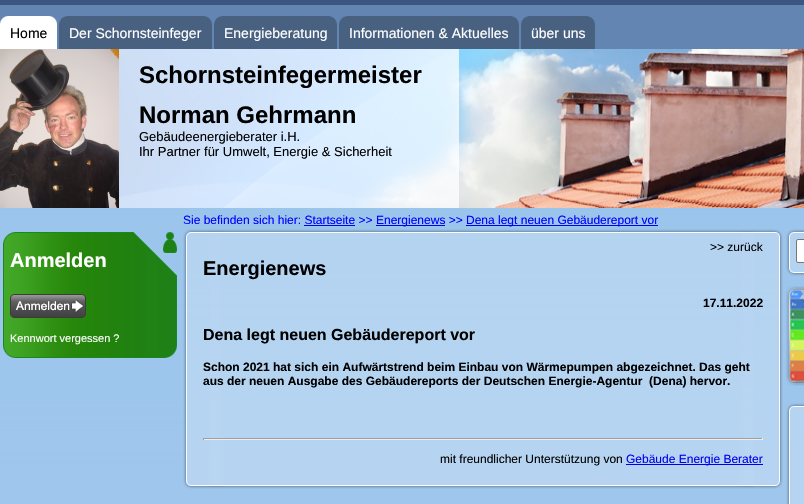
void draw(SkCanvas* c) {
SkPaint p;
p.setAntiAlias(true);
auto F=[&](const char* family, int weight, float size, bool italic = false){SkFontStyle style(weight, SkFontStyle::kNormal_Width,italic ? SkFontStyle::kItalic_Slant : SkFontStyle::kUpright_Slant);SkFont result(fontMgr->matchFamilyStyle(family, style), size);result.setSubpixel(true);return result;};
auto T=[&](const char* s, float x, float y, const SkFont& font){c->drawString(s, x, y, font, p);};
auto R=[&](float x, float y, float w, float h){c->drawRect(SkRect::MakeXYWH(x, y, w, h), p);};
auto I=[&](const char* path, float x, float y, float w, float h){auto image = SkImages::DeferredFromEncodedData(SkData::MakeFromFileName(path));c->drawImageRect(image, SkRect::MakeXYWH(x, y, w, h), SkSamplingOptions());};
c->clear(0xffffffff);
I("1.png",0,208,804,296);
I("2.png",0,0,804,49);
I("3.png",0,16,10,33);
p.setColor(0xffffffff);
R(10,16,37,33);
auto f1 = F("Liberation Sans",400,14);
p.setColor(0xff000000);
T("Home",10,38,f1);
I("4.png",47,16,10,33);
I("5.png",59,16,10,33);
p.setColor(0xff486181);
R(69,16,133,33);
p.setColor(0xffffffff);
T("Der Schornsteinfeger",69,38,f1);
I("6.png",202,16,10,33);
I("5.png",214,16,10,33);
p.setColor(0xff486181);
R(224,16,103,33);
p.setColor(0xffffffff);
T("Energieberatung",224,38,f1);
I("6.png",327,16,10,33);
I("5.png",339,16,10,33);
p.setColor(0xff486181);
R(349,16,160,33);
p.setColor(0xffffffff);
T("Informationen & Aktuelles",349,38,f1);
I("6.png",509,16,10,33);
I("5.png",521,16,10,33);
p.setColor(0xff486181);
R(531,16,54,33);
p.setColor(0xffffffff);
T("über uns",531,38,f1);
I("6.png",585,16,10,33);
I("7.png",119,49,685,159);
I("8.png",0,49,119,159);
p.setColor(0xbfffffff);
R(119,49,340,159);
auto f2 = F("Liberation Sans",700,24);
p.setColor(0xff000000);
T("Schornsteinfegermeister",139,83,f2);
T("Norman Gehrmann",139,123,f2);
auto f3 = F("Liberation Sans",400,13);
T("Gebäudeenergieberater i.H.",139,141,f3);
T("Ihr Partner für Umwelt, Energie & Sicherheit",139,156,f3);
auto f4 = F("Liberation Sans",400,12);
p.setColor(0xff0000ff);
T("Sie befinden sich hier: Startseite >>",183,224,f4);
R(376,225,69,1);
T("Energienews >>",376,224,f4);
R(466,225,192,1);
T("Dena legt neuen Gebäudereport vor",466,224,f4);
R(304,225,51,1);
I("9.png",3,232,174,45);
auto f5 = F("Liberation Sans",700,20);
p.setColor(0xffffffff);
T("Anmelden",10,267,f5);
I("10.png",3,277,174,67);
I("11.png",10,294,76,24);
I("12.png",3,344,174,14);
auto f6 = F("Liberation Sans",400,11);
T("Kennwort vergessen ?",10,342,f6);
I("13.png",183,229,600,10);
I("14.png",183,239,600,240);
p.setColor(0xff000000);
T(">> zurück",710,251,f4);
T("Energienews",203,275,f5);
auto f7 = F("Liberation Sans",700,12);
T("17.11.2022",703,307,f7);
auto f8 = F("Liberation Sans",700,16);
T("Dena legt neuen Gebäudereport vor",203,340,f8);
T("Schon 2021 hat sich ein Aufwärtstrend beim Einbau von Wärmepumpen abgezeichnet. Das geht",203,371,f7);
T("aus der neuen Ausgabe des Gebäudereports der Deutschen Energie-Agentur  (Dena) hervor.",203,385,f7);
p.setColor(0xff9f9f9f);
R(203,438,560,1);
p.setColor(0xffeeeeee);
R(762,438,1,2);
R(203,439,560,1);
p.setColor(0xff9f9f9f);
R(203,438,1,2);
p.setColor(0xff000000);
T("mit freundlicher Unterstützung von",440,463,f4);
p.setColor(0xff0000ee);
R(626,464,137,1);
T("Gebäude Energie Berater",626,463,f4);
I("15.png",183,479,600,10);
I("16.png",786,229,18,10);
I("17.png",786,239,18,27);
p.setColor(0xffffffff);
c->drawRoundRect(SkRect::MakeXYWH(796.5,239.5,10,23),1.5,1.5,p);
p.setStroke(true);
p.setStrokeWidth(1);
p.setColor(0xff767676);
c->drawRoundRect(SkRect::MakeXYWH(796.5,239.5,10,23),1.5,1.5,p);
I("18.png",786,266,18,10);
I("19.png",786,286,18,100);
I("20.png",786,403,18,10);
I("21.png",786,413,18,91);
}
